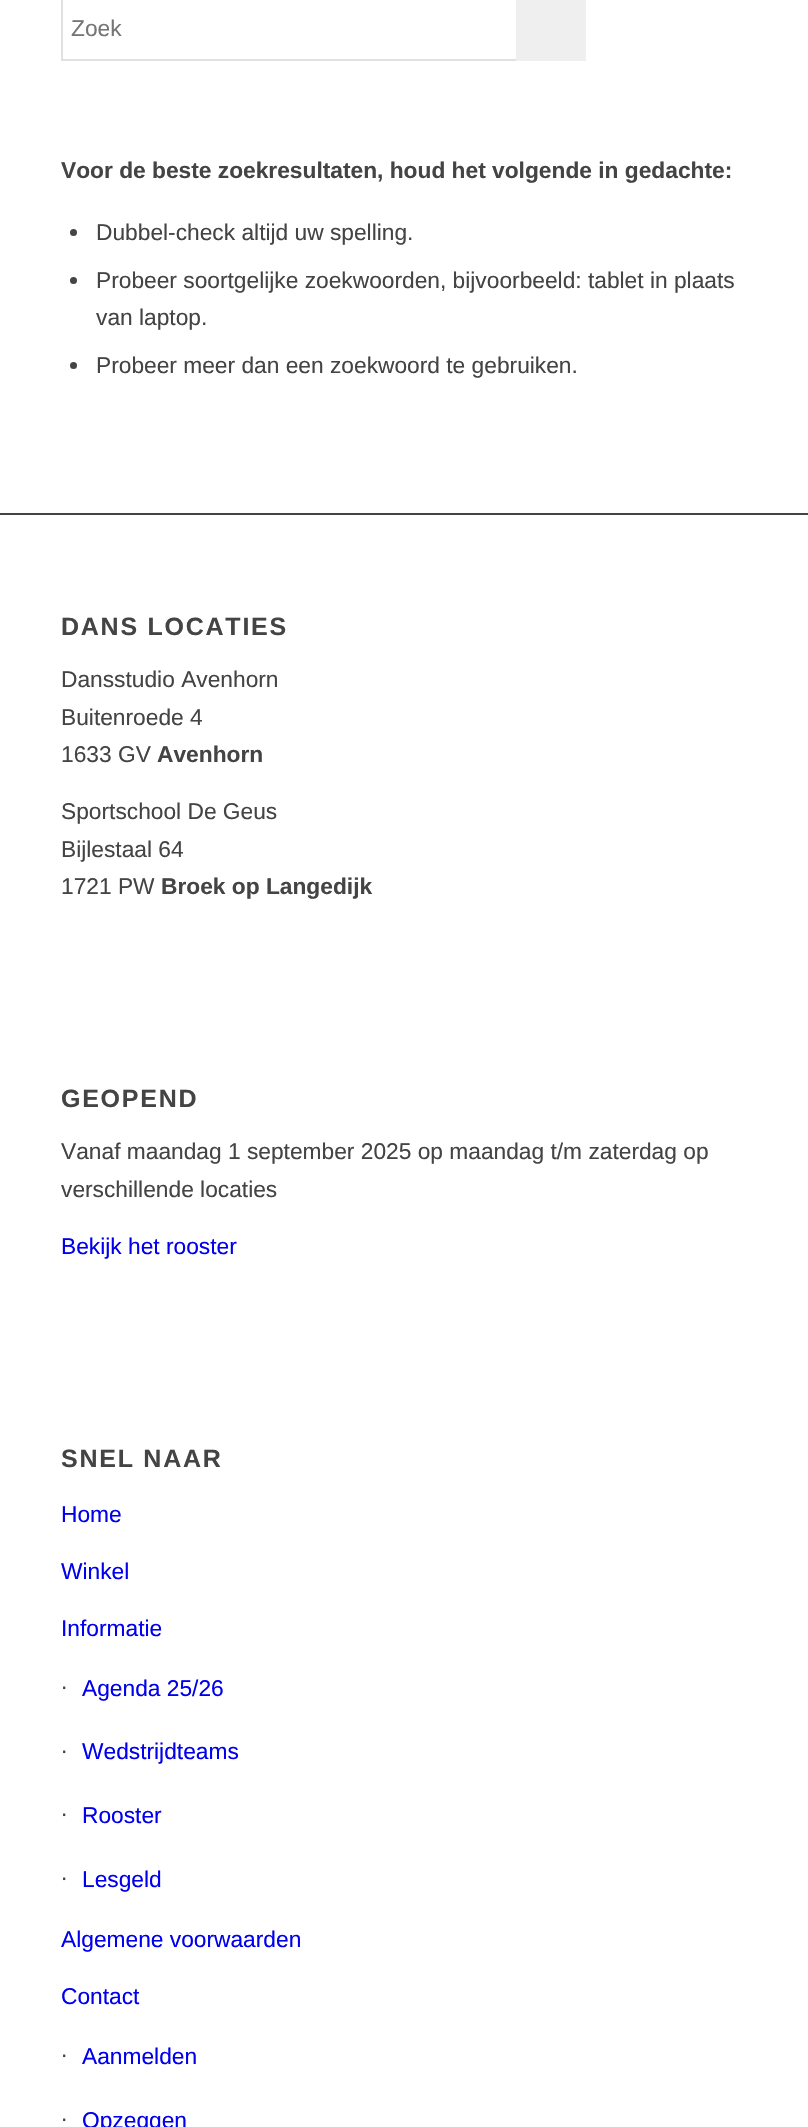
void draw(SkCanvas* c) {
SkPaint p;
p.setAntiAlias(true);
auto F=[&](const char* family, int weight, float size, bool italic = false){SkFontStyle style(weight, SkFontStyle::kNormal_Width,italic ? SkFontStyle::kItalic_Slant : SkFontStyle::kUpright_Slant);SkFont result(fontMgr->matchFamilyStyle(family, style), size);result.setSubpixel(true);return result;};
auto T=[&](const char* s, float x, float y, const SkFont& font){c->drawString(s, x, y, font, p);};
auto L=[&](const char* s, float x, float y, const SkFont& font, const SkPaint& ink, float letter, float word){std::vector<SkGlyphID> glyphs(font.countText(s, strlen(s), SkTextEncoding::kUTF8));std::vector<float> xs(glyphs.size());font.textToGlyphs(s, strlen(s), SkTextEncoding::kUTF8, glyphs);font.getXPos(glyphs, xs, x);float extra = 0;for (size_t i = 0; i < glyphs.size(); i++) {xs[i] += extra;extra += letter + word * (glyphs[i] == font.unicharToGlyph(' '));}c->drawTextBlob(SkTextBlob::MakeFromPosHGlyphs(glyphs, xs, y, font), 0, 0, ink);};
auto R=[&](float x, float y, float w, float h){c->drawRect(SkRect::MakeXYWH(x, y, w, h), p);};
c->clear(0xffffffff);
p.setStroke(true);
p.setStrokeWidth(2);
p.setColor(0xffe1e1e1);
c->drawRect(SkRect::MakeXYWH(62,-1,523,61),p);
auto f1 = F("Liberation Sans",400,22.75);
p.setStroke(false);
p.setColor(0xff757575);
T("Zoek",71,36,f1);
p.setColor(0xffefefef);
R(516,0,70,61);
auto f2 = F("Liberation Sans",700,22.75);
p.setColor(0xff444444);
T("Voor de beste zoekresultaten, houd het volgende in gedachte:",61,178,f2);
c->drawCircle(73.5,232.5,3.5,p);
T("Dubbel-check altijd uw spelling.",96,240,f1);
c->drawCircle(73.5,280.5,3.5,p);
T("Probeer soortgelijke zoekwoorden, bijvoorbeeld: tablet in plaats",96,288,f1);
T("van laptop.",96,325,f1);
c->drawCircle(73.5,365.5,3.5,p);
T("Probeer meer dan een zoekwoord te gebruiken.",96,373,f1);
R(0,513,808,2);
auto f3 = F("Liberation Sans",700,25);
L("DANS LOCATIES",61,635,f3,p,1.75,0);
T("Dansstudio Avenhorn",61,687,f1);
T("Buitenroede 4",61,725,f1);
T("1633 GV",61,762,f1);
T("Avenhorn",157,762,f2);
T("Sportschool De Geus",61,819,f1);
T("Bijlestaal 64",61,857,f1);
T("1721 PW",61,894,f1);
T("Broek op Langedijk",161,894,f2);
L("GEOPEND",61,1107,f3,p,1.75,0);
T("Vanaf maandag 1 september 2025 op maandag t/m zaterdag op",61,1159,f1);
T("verschillende locaties",61,1197,f1);
p.setColor(0xff0000ee);
T("Bekijk het rooster",61,1254,f1);
p.setColor(0xff444444);
L("SNEL NAAR",61,1467,f3,p,1.75,0);
p.setColor(0xff0000ee);
T("Home",61,1522,f1);
T("Winkel",61,1579,f1);
T("Informatie",61,1636,f1);
p.setColor(0xff444444);
T("∙",61,1694,f1);
p.setColor(0xff0000ee);
T("Agenda 25/26",82,1696,f1);
p.setColor(0xff444444);
T("∙",61,1758,f1);
p.setColor(0xff0000ee);
T("Wedstrijdteams",82,1759,f1);
p.setColor(0xff444444);
T("∙",61,1821,f1);
p.setColor(0xff0000ee);
T("Rooster",82,1823,f1);
p.setColor(0xff444444);
T("∙",61,1885,f1);
p.setColor(0xff0000ee);
T("Lesgeld",82,1887,f1);
T("Algemene voorwaarden",61,1947,f1);
T("Contact",61,2004,f1);
p.setColor(0xff444444);
T("∙",61,2062,f1);
p.setColor(0xff0000ee);
T("Aanmelden",82,2064,f1);
p.setColor(0xff444444);
T("∙",61,2126,f1);
p.setColor(0xff0000ee);
T("Opzeggen",82,2128,f1);
}
